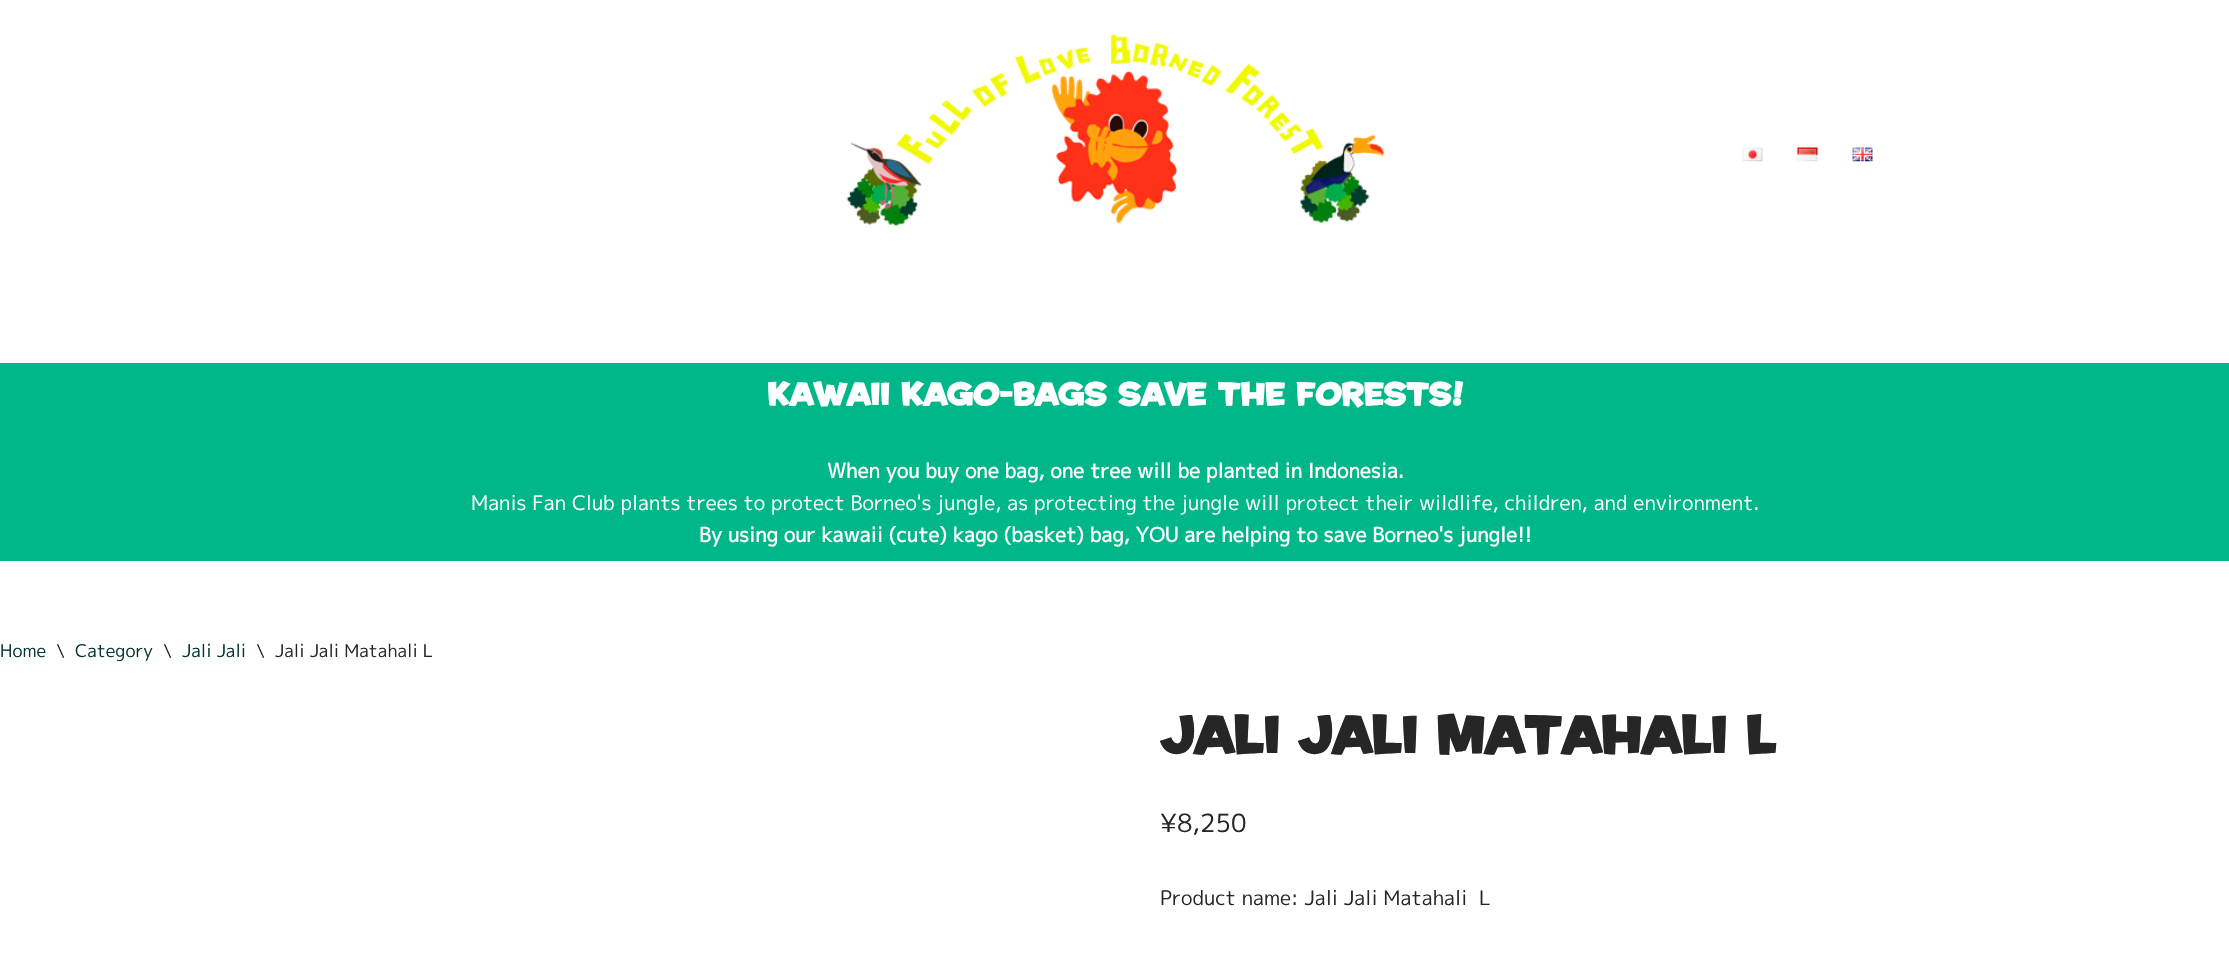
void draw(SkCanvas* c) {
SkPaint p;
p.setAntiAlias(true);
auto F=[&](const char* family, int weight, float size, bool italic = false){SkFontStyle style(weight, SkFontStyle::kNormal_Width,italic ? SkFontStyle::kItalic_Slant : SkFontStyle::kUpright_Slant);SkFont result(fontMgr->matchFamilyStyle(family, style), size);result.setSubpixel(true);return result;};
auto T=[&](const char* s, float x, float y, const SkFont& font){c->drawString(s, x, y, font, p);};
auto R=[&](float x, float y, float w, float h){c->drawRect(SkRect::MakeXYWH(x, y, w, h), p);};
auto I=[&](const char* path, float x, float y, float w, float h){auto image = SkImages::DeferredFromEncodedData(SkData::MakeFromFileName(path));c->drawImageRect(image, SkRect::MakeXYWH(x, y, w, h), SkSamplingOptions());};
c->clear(0xffffffff);
I("1.png",846,35,539,191);
I("2.png",1742,147,21,15);
I("3.png",1797,147,21,15);
I("4.png",1852,147,21,15);
p.setColor(0xff00b789);
R(0,363,2229,198);
auto f1 = F("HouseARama",700,30);
p.setColor(0xffffffff);
T("Kawaii kago-bags save the forests!",767,405,f1);
auto f2 = F("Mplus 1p",700,20);
T("When you buy one bag, one tree will be planted in Indonesia.",827,478,f2);
auto f3 = F("Mplus 1p",400,20);
T("Manis Fan Club plants trees to protect Borneo's jungle, as protecting the jungle will protect their wildlife, children, and environment.",471,510,f3);
T("By using our kawaii (cute) kago (basket) bag, YOU are helping to save Borneo's jungle!!",699,542,f2);
auto f4 = F("Mplus 1p",400,17.5);
p.setColor(0xff023432);
T("Home",0,657,f4);
p.setColor(0xff272626);
T("\\",56,657,f4);
p.setColor(0xff023432);
T("Category",75,657,f4);
p.setColor(0xff272626);
T("\\",163,657,f4);
p.setColor(0xff023432);
T("Jali Jali",182,657,f4);
p.setColor(0xff272626);
T("\\",256,657,f4);
T("Jali Jali Matahali L",275,657,f4);
auto f5 = F("HouseARama",700,50);
T("Jali Jali Matahali L",1160,753,f5);
auto f6 = F("Mplus 1p",400,25);
T("¥8,250",1160,832,f6);
T("Product name: Jali Jali Matahali  L",1160,905,f3);
}
